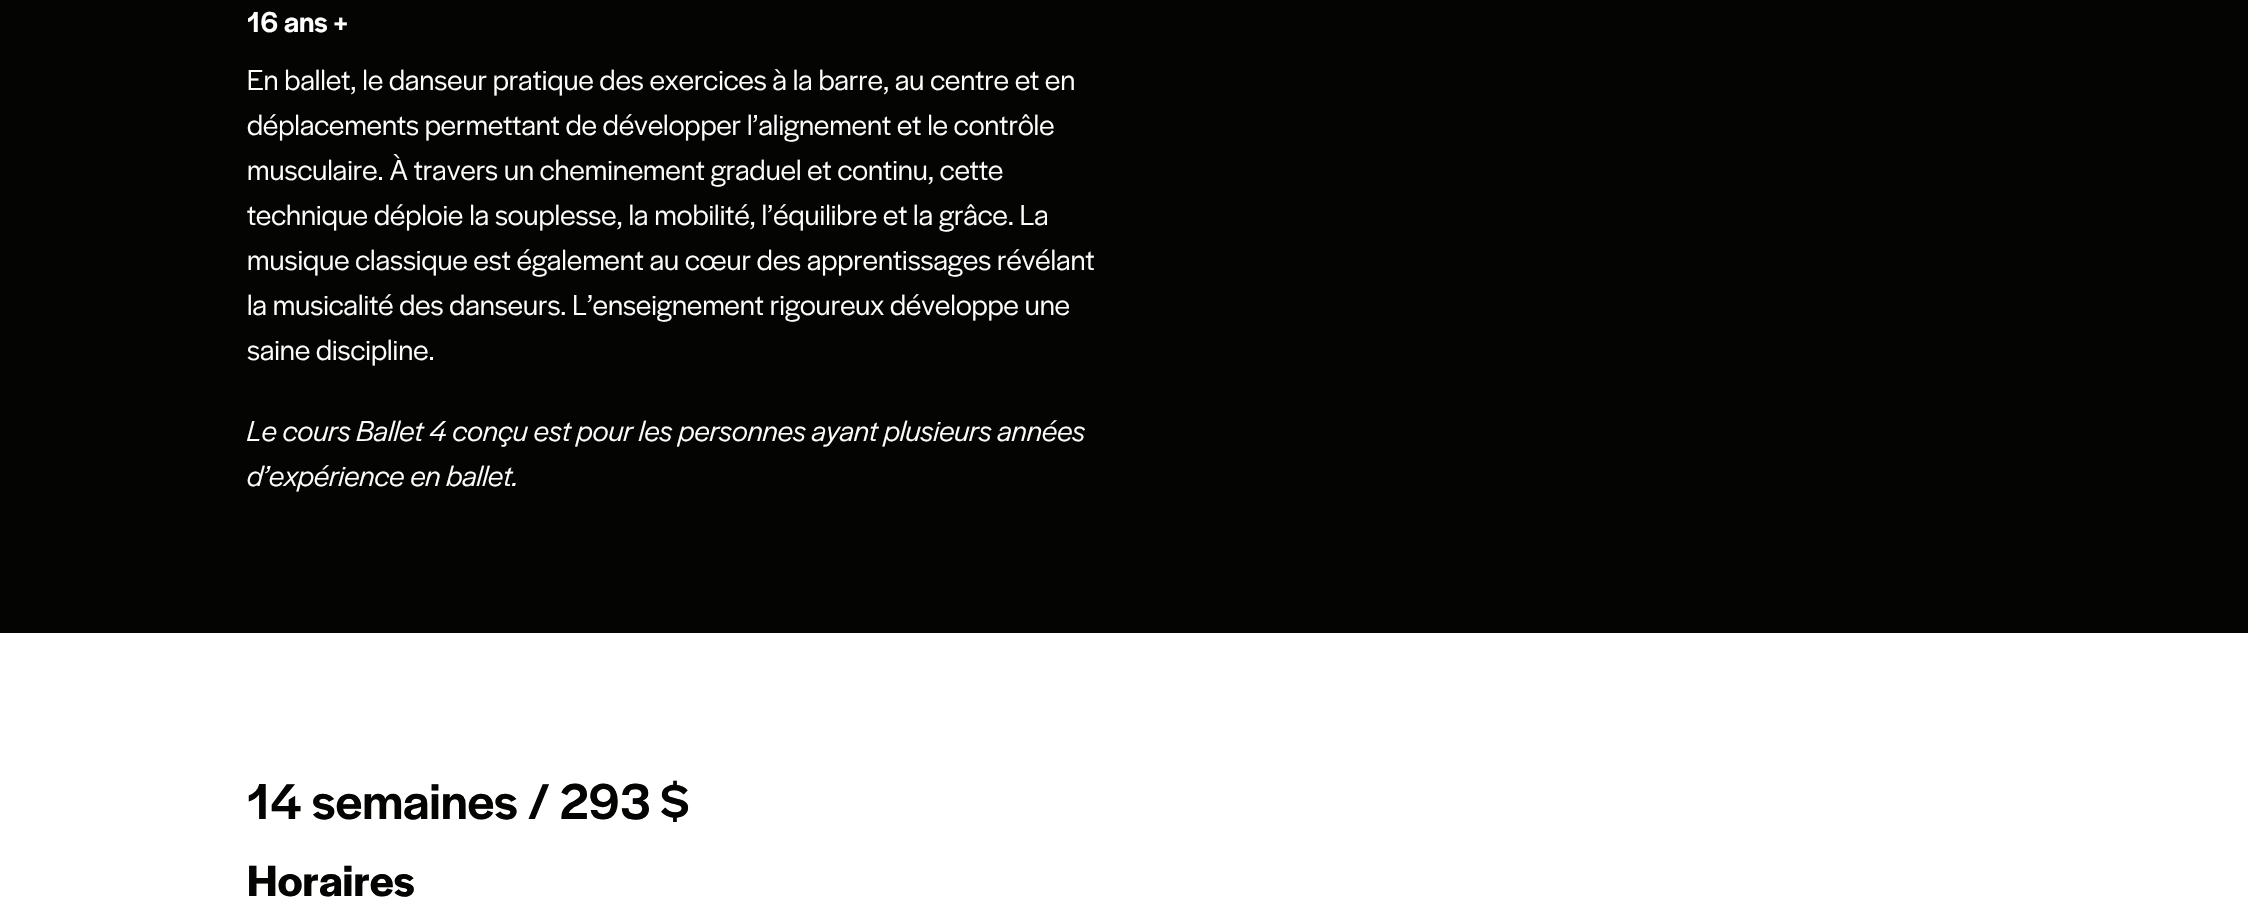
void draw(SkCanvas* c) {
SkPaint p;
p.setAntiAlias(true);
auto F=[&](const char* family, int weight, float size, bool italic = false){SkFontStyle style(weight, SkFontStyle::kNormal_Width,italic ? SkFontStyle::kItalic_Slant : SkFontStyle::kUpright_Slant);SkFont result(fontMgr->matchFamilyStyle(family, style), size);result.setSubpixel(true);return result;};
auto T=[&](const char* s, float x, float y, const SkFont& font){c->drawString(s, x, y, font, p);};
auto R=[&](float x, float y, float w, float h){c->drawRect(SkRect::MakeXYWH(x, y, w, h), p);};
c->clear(0xff040503);
auto f1 = F("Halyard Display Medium",500,30);
p.setColor(0xffffffff);
T("16 ans +",247,32,f1);
auto f2 = F("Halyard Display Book",400,30);
T("En ballet, le danseur pratique des exercices à la barre, au centre et en",247,90,f2);
T("déplacements permettant de développer l’alignement et le contrôle",247,135,f2);
T("musculaire. À travers un cheminement graduel et continu, cette",247,180,f2);
T("technique déploie la souplesse, la mobilité, l’équilibre et la grâce. La",247,225,f2);
T("musique classique est également au cœur des apprentissages révélant",247,270,f2);
T("la musicalité des danseurs. L’enseignement rigoureux développe une",247,315,f2);
T("saine discipline.",247,360,f2);
auto f3 = F("Halyard Display Book",400,30,true);
T("Le cours Ballet 4 conçu est pour les personnes ayant plusieurs années",247,441,f3);
T("d’expérience en ballet.",247,486,f3);
R(0,633,2248,277);
auto f4 = F("Halyard Display Medium",500,52.5);
p.setColor(0xff040503);
T("14 semaines / 293 $",247,819,f4);
auto f5 = F("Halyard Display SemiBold",600,45.5);
T("Horaires",247,896,f5);
}
